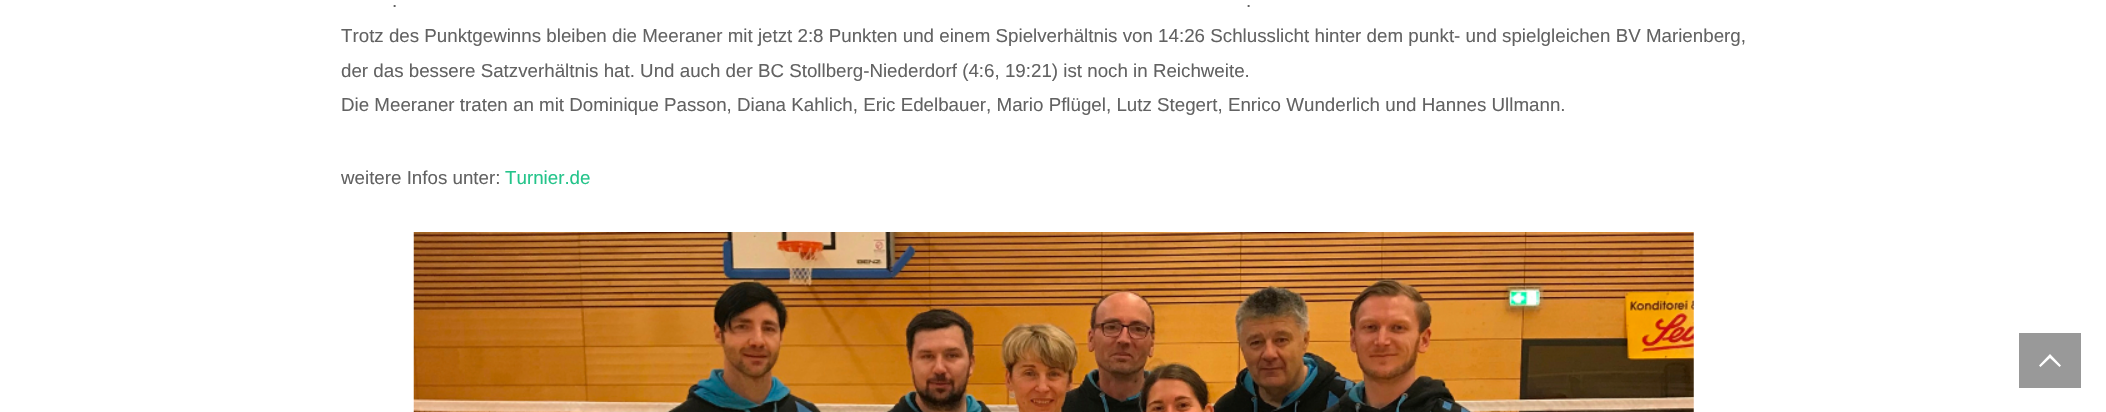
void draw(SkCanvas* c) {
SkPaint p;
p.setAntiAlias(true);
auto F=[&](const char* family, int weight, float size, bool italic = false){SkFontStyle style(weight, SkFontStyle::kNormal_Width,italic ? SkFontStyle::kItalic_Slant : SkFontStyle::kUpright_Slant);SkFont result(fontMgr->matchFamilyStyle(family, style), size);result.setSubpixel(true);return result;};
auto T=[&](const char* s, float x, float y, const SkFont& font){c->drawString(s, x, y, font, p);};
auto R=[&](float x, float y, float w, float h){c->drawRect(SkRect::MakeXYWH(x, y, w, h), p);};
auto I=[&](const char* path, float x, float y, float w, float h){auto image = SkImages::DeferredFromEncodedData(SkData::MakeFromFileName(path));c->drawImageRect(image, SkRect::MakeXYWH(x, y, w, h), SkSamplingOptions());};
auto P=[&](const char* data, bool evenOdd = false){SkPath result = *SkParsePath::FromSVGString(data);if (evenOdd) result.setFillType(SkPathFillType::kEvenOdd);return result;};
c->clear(0xffffffff);
auto f1 = F("Liberation Sans",400,18.75);
p.setColor(0xff626262);
T(".",392,7,f1);
T(".",1246,7,f1);
T("Trotz des Punktgewinns bleiben die Meeraner mit jetzt 2:8 Punkten und einem Spielverhältnis von 14:26 Schlusslicht hinter dem punkt- und spielgleichen BV Marienberg,",341,42,f1);
T("der das bessere Satzverhältnis hat. Und auch der BC Stollberg-Niederdorf (4:6, 19:21) ist noch in Reichweite.",341,77,f1);
T("Die Meeraner traten an mit Dominique Passon, Diana Kahlich, Eric Edelbauer, Mario Pflügel, Lutz Stegert, Enrico Wunderlich und Hannes Ullmann.",341,111,f1);
T("weitere Infos unter:",341,184,f1);
p.setColor(0xff24c48a);
T("Turnier.de",505,184,f1);
I("1.png",413,232,1281,180);
p.setColor(0xff999999);
R(2019,333,62,55);
p.setColor(0xffffffff);
c->drawPath(P("M2059.5 367l-9.5-9l-9.5 9l-1.5-1.5l11-11.5l11 11.5z"),p);
}
